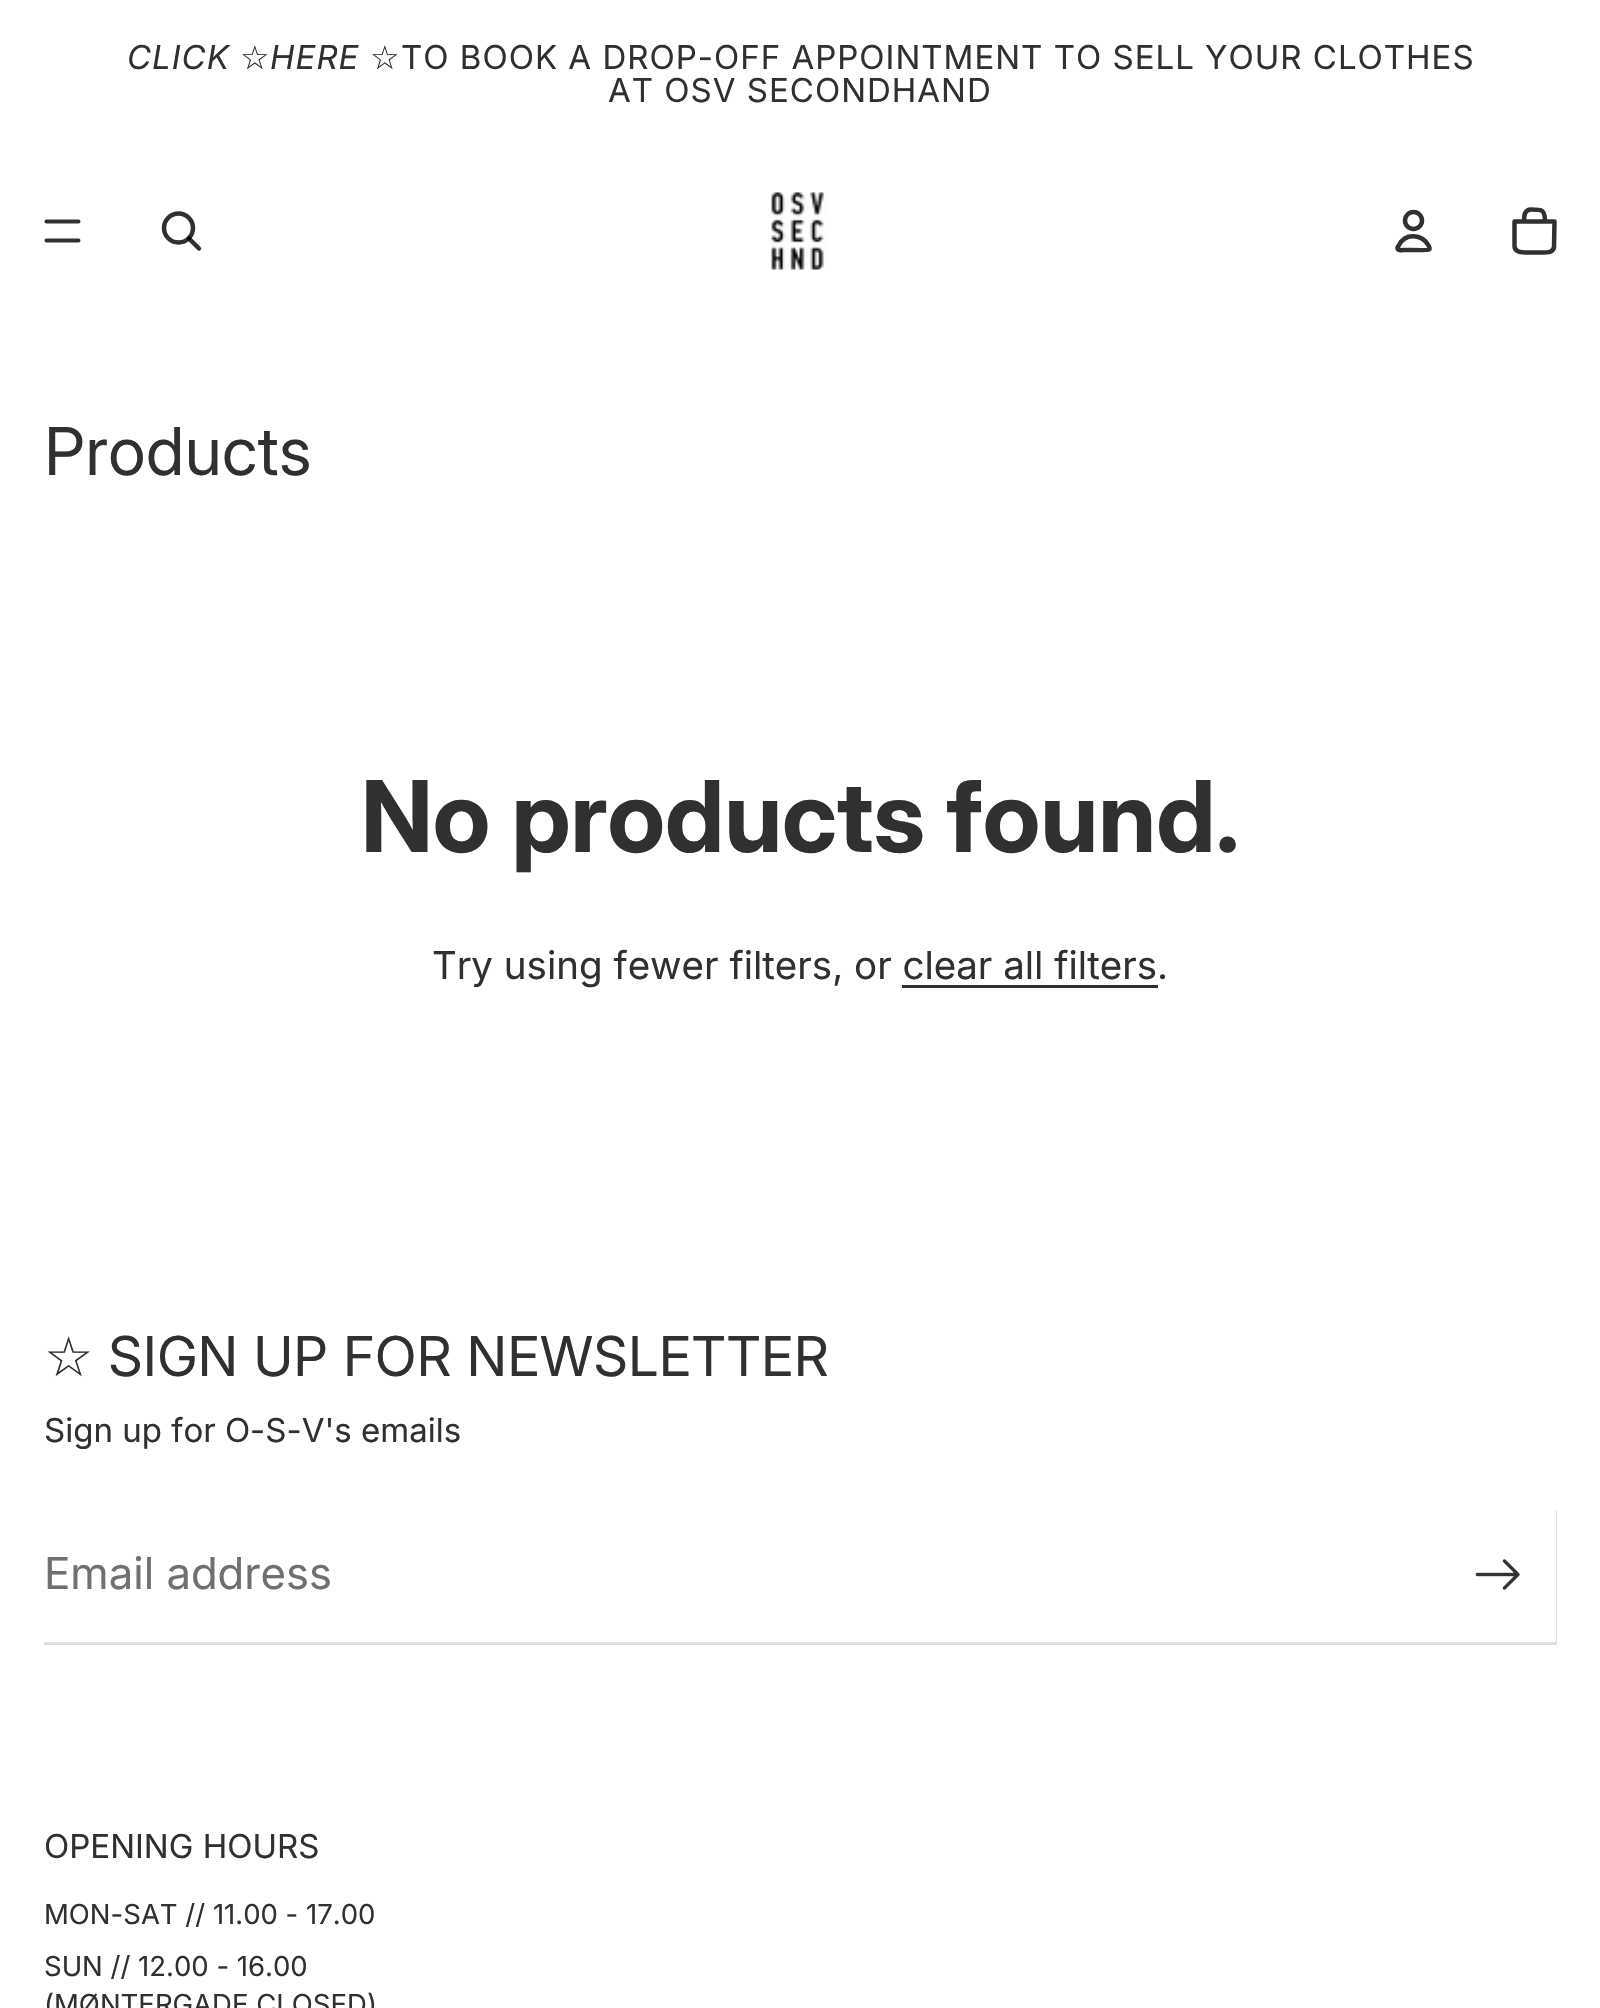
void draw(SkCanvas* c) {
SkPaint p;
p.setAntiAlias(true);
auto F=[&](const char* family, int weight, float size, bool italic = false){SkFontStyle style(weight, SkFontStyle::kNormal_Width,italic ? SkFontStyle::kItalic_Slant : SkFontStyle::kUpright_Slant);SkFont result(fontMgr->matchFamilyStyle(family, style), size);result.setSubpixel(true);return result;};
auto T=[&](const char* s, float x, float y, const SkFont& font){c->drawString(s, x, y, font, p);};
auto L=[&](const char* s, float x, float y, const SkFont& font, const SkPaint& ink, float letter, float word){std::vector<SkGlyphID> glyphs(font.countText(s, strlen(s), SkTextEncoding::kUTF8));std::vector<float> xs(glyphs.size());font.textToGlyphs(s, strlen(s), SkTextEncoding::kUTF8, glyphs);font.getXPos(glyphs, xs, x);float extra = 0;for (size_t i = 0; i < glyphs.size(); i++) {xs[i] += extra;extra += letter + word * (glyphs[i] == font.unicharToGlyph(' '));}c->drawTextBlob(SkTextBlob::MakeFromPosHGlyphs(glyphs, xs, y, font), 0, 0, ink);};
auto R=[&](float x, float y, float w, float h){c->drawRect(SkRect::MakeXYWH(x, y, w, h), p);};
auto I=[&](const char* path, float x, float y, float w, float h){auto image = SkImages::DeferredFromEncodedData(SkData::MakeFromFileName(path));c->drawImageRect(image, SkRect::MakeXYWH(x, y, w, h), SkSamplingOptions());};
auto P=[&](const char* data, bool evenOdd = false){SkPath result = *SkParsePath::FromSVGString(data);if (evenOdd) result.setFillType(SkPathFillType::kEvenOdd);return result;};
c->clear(0xffffffff);
auto f1 = F("Inter",400,33,true);
p.setColor(0xff303030);
L("CLICK",127,69,f1,p,1,0);
auto f2 = F("DejaVu Sans",400,33);
L("☆",240,69,f2,p,1,0);
L("HERE",270,69,f1,p,1,0);
L("☆",370,69,f2,p,1,0);
auto f3 = F("Inter",400,33);
L("TO BOOK A DROP-OFF APPOINTMENT TO SELL YOUR CLOTHES",401,69,f3,p,1,0);
L("AT OSV SECONDHAND",608,102,f3,p,1,0);
p.setStroke(true);
p.setStrokeWidth(4);
p.setStrokeCap(SkPaint::kRound_Cap);
c->drawPath(P("M46.5 221.5h32m-32 19h32"),p);
p.setStrokeWidth(4.5);
p.setStrokeCap(SkPaint::kButt_Cap);
c->drawCircle(178.5,228,14.5,p);
p.setStrokeCap(SkPaint::kRound_Cap);
p.setStrokeJoin(SkPaint::kRound_Join);
p.setColor(0xcf000000);
c->drawPath(P("M189 238.5l10 10"),p);
I("1.png",768,192,59,78);
p.setStrokeCap(SkPaint::kButt_Cap);
p.setStrokeJoin(SkPaint::kMiter_Join);
p.setColor(0xff303030);
c->drawCircle(1413.5,220.5,8.5,p);
p.setStrokeCap(SkPaint::kRound_Cap);
p.setStrokeJoin(SkPaint::kRound_Join);
c->drawPath(P("M1399 245l-1.5 2.5c-1 3.5 6 2.5 6.5 2.5h4.5c3 0 19 .5 20.5-.5l.5-.5c.5-1-.5-2.5-1-3.5c-6.5-11.5-23-13-29.5-.5"),p);
c->drawPath(P("M1514.5 221.5h40l-.5 26c-1.5 5-6 5-10.5 5h-18c-4.5 0-11-.5-11-6.5zm16.5-12c11 0 14 0 14 12h-21c0-5 0-12 7-12"),p);
auto f4 = F("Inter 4",400,66);
p.setStroke(false);
T("Products",44,475,f4);
auto f5 = F("Inter",700,99);
T("No products found.",361,852,f5);
auto f6 = F("Inter",400,38.5);
T("Try using fewer filters, or clear all filters.",432,979,f6);
R(902,985,256,3);
auto f7 = F("DejaVu Sans",400,55);
T("☆",44,1376,f7);
auto f8 = F("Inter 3",400,55);
T("SIGN UP FOR NEWSLETTER",108,1376,f8);
T("Sign up for O-S-V's emails",44,1442,f3);
p.setColor(0xffdfdfdf);
c->drawPath(P("M44 1642v3h1513v-135h-1v132z"),p);
auto f9 = F("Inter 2",400,44);
p.setColor(0xff707070);
T("Email address",44,1589,f9);
I("2.png",1475,1559,45,31);
p.setColor(0xff303030);
T("OPENING HOURS",44,1858,f3);
auto f10 = F("Inter",400,27.5);
T("MON-SAT // 11.00 - 17.00",44,1924,f10);
T("SUN // 12.00 - 16.00",44,1976,f10);
T("(MØNTERGADE CLOSED)",44,2014,f10);
}
